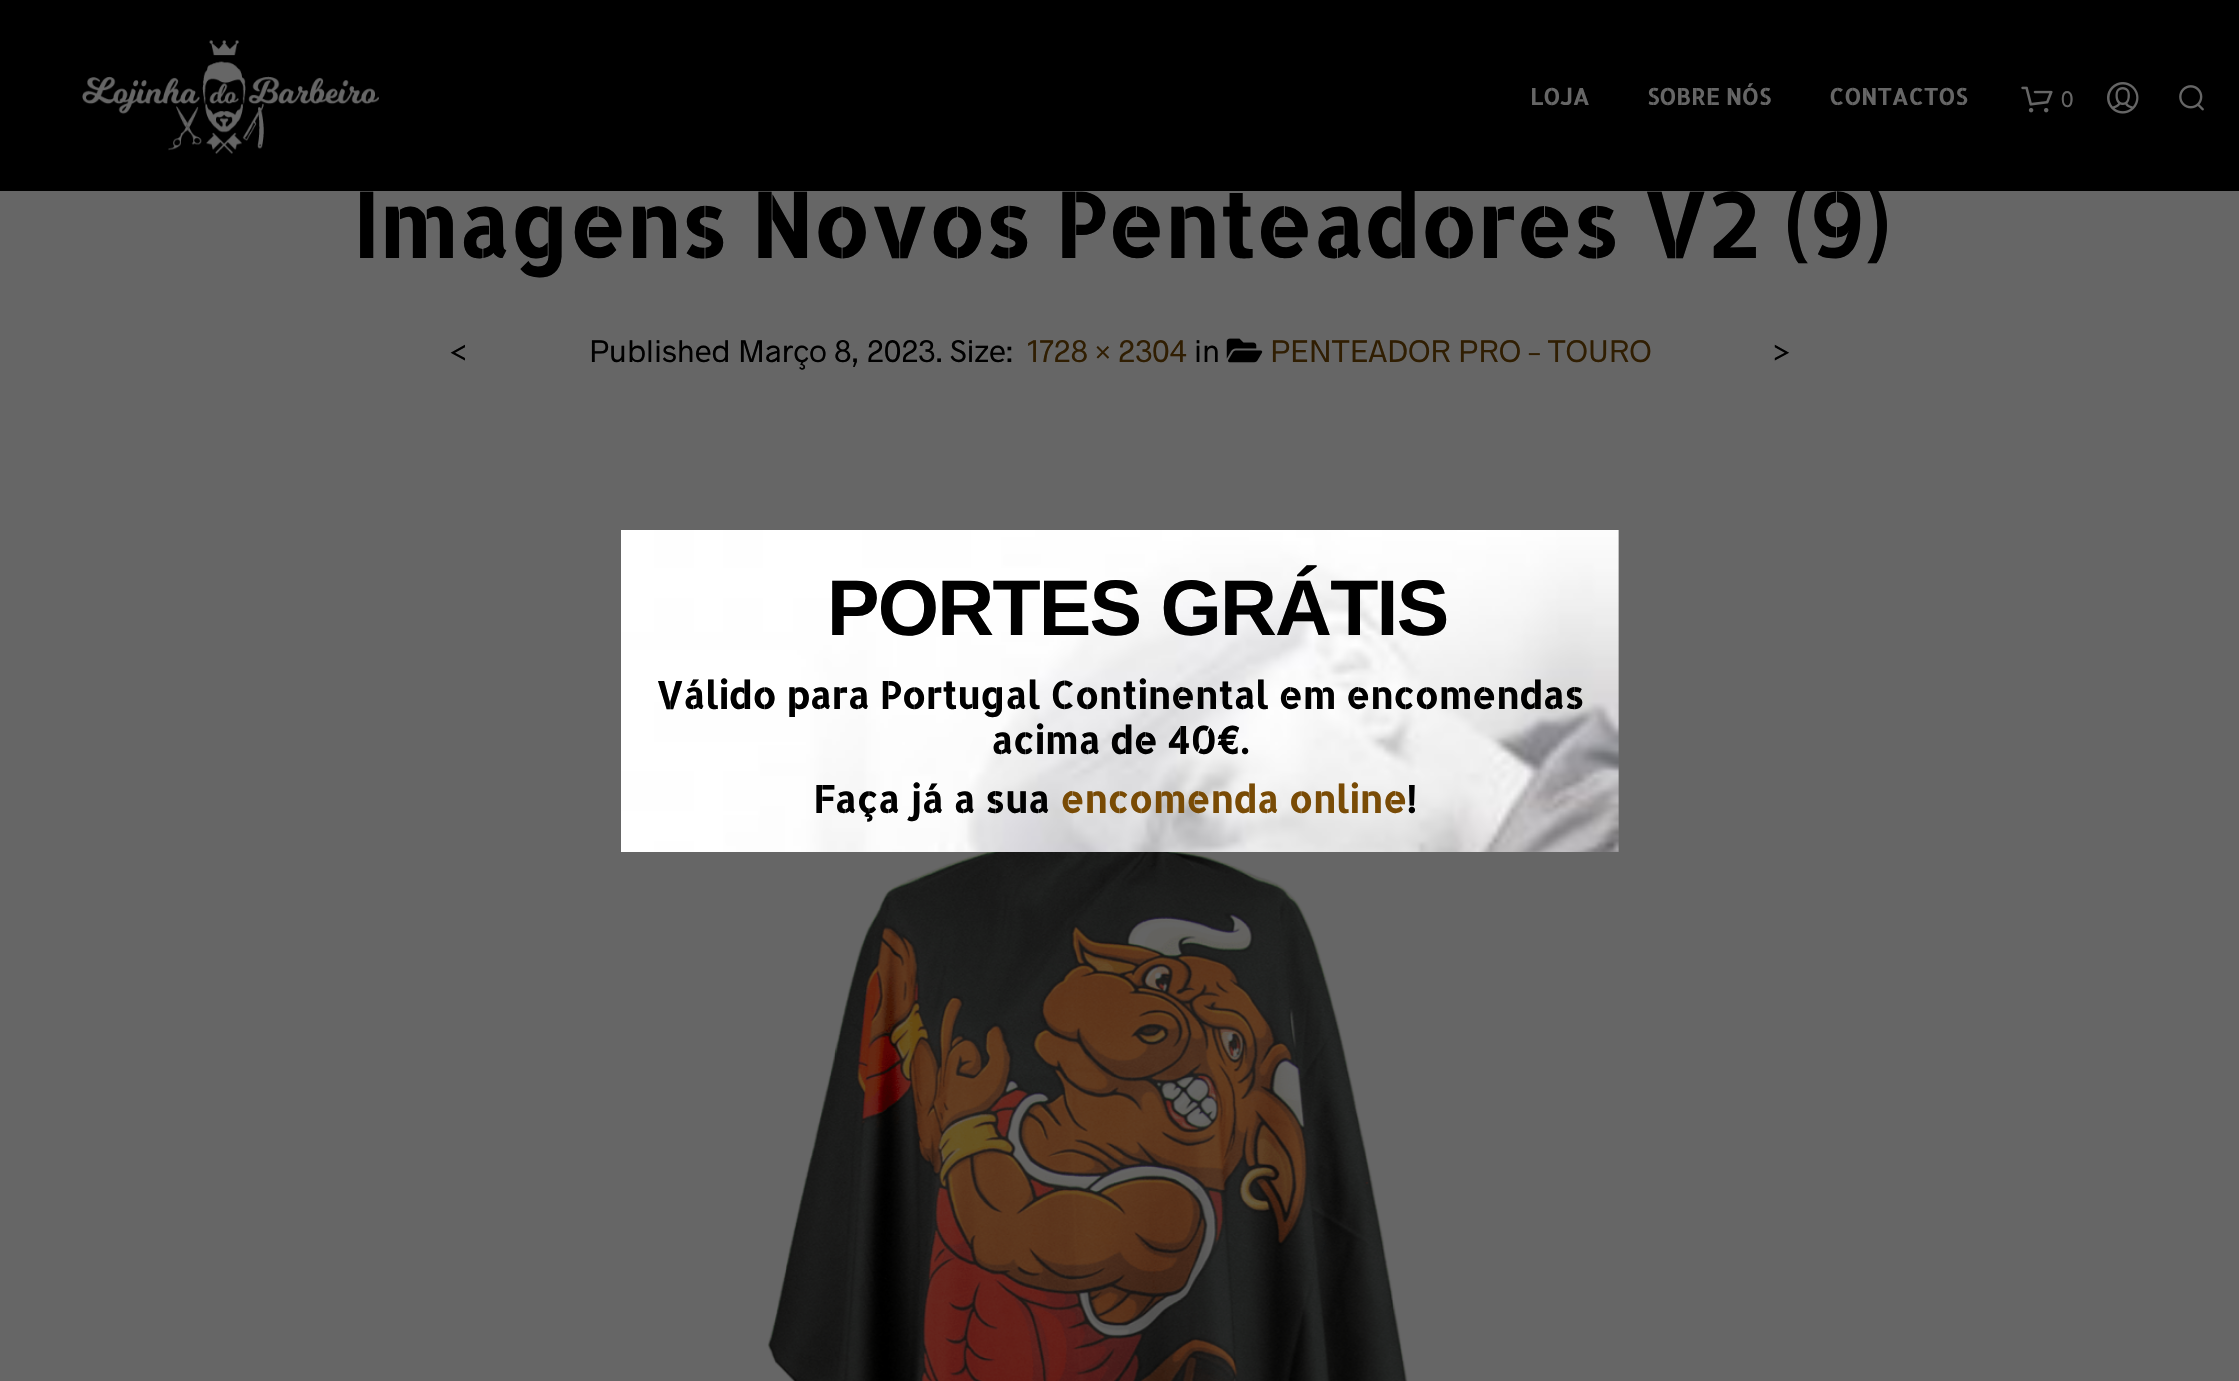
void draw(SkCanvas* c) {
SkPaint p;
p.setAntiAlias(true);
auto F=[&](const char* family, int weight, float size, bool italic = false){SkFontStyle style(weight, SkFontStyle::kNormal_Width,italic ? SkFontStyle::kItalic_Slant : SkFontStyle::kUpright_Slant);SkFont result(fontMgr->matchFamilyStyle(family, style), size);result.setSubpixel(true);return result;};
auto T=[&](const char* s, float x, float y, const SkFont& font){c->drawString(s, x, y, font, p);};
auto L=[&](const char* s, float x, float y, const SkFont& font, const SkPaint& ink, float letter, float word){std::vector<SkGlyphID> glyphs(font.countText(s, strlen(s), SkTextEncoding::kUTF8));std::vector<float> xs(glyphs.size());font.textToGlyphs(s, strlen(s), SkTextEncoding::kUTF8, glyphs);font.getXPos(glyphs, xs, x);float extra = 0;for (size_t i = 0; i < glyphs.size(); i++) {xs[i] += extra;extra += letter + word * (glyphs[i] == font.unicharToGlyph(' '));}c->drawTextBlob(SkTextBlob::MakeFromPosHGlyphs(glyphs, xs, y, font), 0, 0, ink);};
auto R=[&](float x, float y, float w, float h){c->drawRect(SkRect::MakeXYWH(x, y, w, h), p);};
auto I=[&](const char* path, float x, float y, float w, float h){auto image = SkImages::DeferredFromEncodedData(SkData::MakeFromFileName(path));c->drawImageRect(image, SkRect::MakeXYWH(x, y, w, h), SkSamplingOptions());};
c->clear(0xff666666);
p.setColor(0xff000000);
R(0,0,2239,191);
I("1.png",82,40,297,114);
auto f1 = F("Allerta Stencil",700,22.75);
p.setColor(0xff666666);
T("LOJA",1530,105,f1);
T("SOBRE NÓS",1647,105,f1);
T("CONTACTOS",1829,105,f1);
I("2.png",2021,86,32,27);
auto f2 = F("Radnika",400,22.75);
T("0",2061,107,f2);
I("3.png",2107,82,32,32);
I("4.png",2179,85,25,26);
auto f3 = F("Allerta Stencil",700,88.4);
p.setColor(0xff000000);
T("Imagens Novos Penteadores V2 (9)",352,258,f3);
auto f4 = F("Radnika",400,31.5);
T("Published Março 8, 2023. Size:",589,362,f4);
p.setColor(0xff301e02);
T("1728 × 2304",1027,362,f4);
p.setColor(0xff000000);
T("in",1194,362,f4);
I("5.png",1226,338,37,25);
p.setColor(0xff301e02);
T("PENTEADOR PRO – TOURO",1270,362,f4);
p.setColor(0xff000000);
T("<",449,363,f4);
T(">",1772,363,f4);
I("6.png",767,852,641,529);
I("7.png",621,530,998,322);
auto f5 = F("Liberation Sans",700,78.75);
L("PORTES GRÁTIS",827,635,f5,p,-1.75,0);
auto f6 = F("Allerta Stencil",700,37.3);
T("Válido para Portugal Continental em encomendas",656,709,f6);
T("acima de 40€.",991,754,f6);
T("Faça já a sua",813,813,f6);
p.setColor(0xff794b05);
T("encomenda online",1060,813,f6);
p.setColor(0xff000000);
T("!",1406,813,f6);
}
